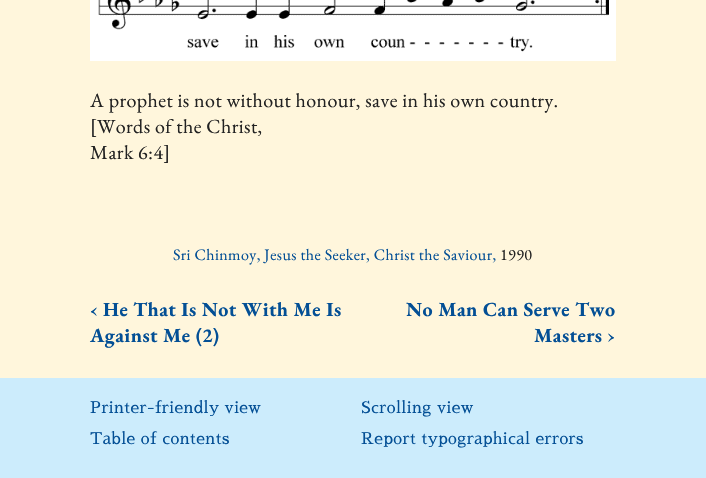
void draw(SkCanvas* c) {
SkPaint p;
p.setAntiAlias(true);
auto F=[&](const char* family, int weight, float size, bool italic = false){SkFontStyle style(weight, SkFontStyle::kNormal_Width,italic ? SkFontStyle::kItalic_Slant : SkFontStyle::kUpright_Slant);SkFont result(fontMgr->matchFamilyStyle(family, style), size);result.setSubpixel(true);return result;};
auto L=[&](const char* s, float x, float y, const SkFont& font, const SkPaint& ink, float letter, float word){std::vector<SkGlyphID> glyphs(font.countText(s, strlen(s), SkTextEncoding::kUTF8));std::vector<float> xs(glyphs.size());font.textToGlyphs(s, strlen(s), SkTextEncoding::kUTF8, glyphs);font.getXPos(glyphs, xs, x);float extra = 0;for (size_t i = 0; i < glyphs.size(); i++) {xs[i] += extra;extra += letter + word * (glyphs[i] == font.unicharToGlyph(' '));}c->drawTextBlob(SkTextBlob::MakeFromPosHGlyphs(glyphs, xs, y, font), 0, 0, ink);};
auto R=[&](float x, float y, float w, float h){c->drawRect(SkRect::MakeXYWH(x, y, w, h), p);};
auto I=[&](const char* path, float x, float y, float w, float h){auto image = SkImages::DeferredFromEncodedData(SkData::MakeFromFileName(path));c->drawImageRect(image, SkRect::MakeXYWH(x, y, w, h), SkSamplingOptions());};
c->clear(0xfffff6dc);
p.setStroke(true);
p.setStrokeWidth(7);
p.setColor(0xffffffff);
c->drawRect(SkRect::MakeXYWH(93.5,-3.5,519,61),p);
I("1.png",97,0,512,54);
auto f1 = F("EB Garamond",400,20);
p.setStroke(false);
p.setColor(0xff222222);
L("A prophet is not without honour, save in his own country.",90,107,f1,p,.4,0);
L("[Words of the Christ,",90,133,f1,p,.4,0);
L("Mark 6:4]",90,159,f1,p,.4,0);
auto f2 = F("EB Garamond",400,16);
p.setColor(0xff034f95);
L("Sri Chinmoy, Jesus the Seeker, Christ the Saviour,",173,260,f2,p,.4,0);
p.setColor(0xff222222);
L("1990",500,260,f2,p,.4,0);
auto f3 = F("EB Garamond",700,20);
p.setColor(0xff034f95);
L("‹ He That Is Not With Me Is",90,316,f3,p,.4,0);
L("Against Me (2)",90,342,f3,p,.4,0);
L("No Man Can Serve Two",406,316,f3,p,.4,0);
L("Masters ›",534,342,f3,p,.4,0);
p.setColor(0xffccecfc);
R(0,378,706,100);
auto f4 = F("Sawarabi Mincho",400,16);
p.setColor(0xff034f95);
L("Printer-friendly view",90,413,f4,p,.4,0);
L("Scrolling view",361,413,f4,p,.4,0);
L("Table of contents",90,444,f4,p,.4,0);
L("Report typographical errors",361,444,f4,p,.4,0);
}
